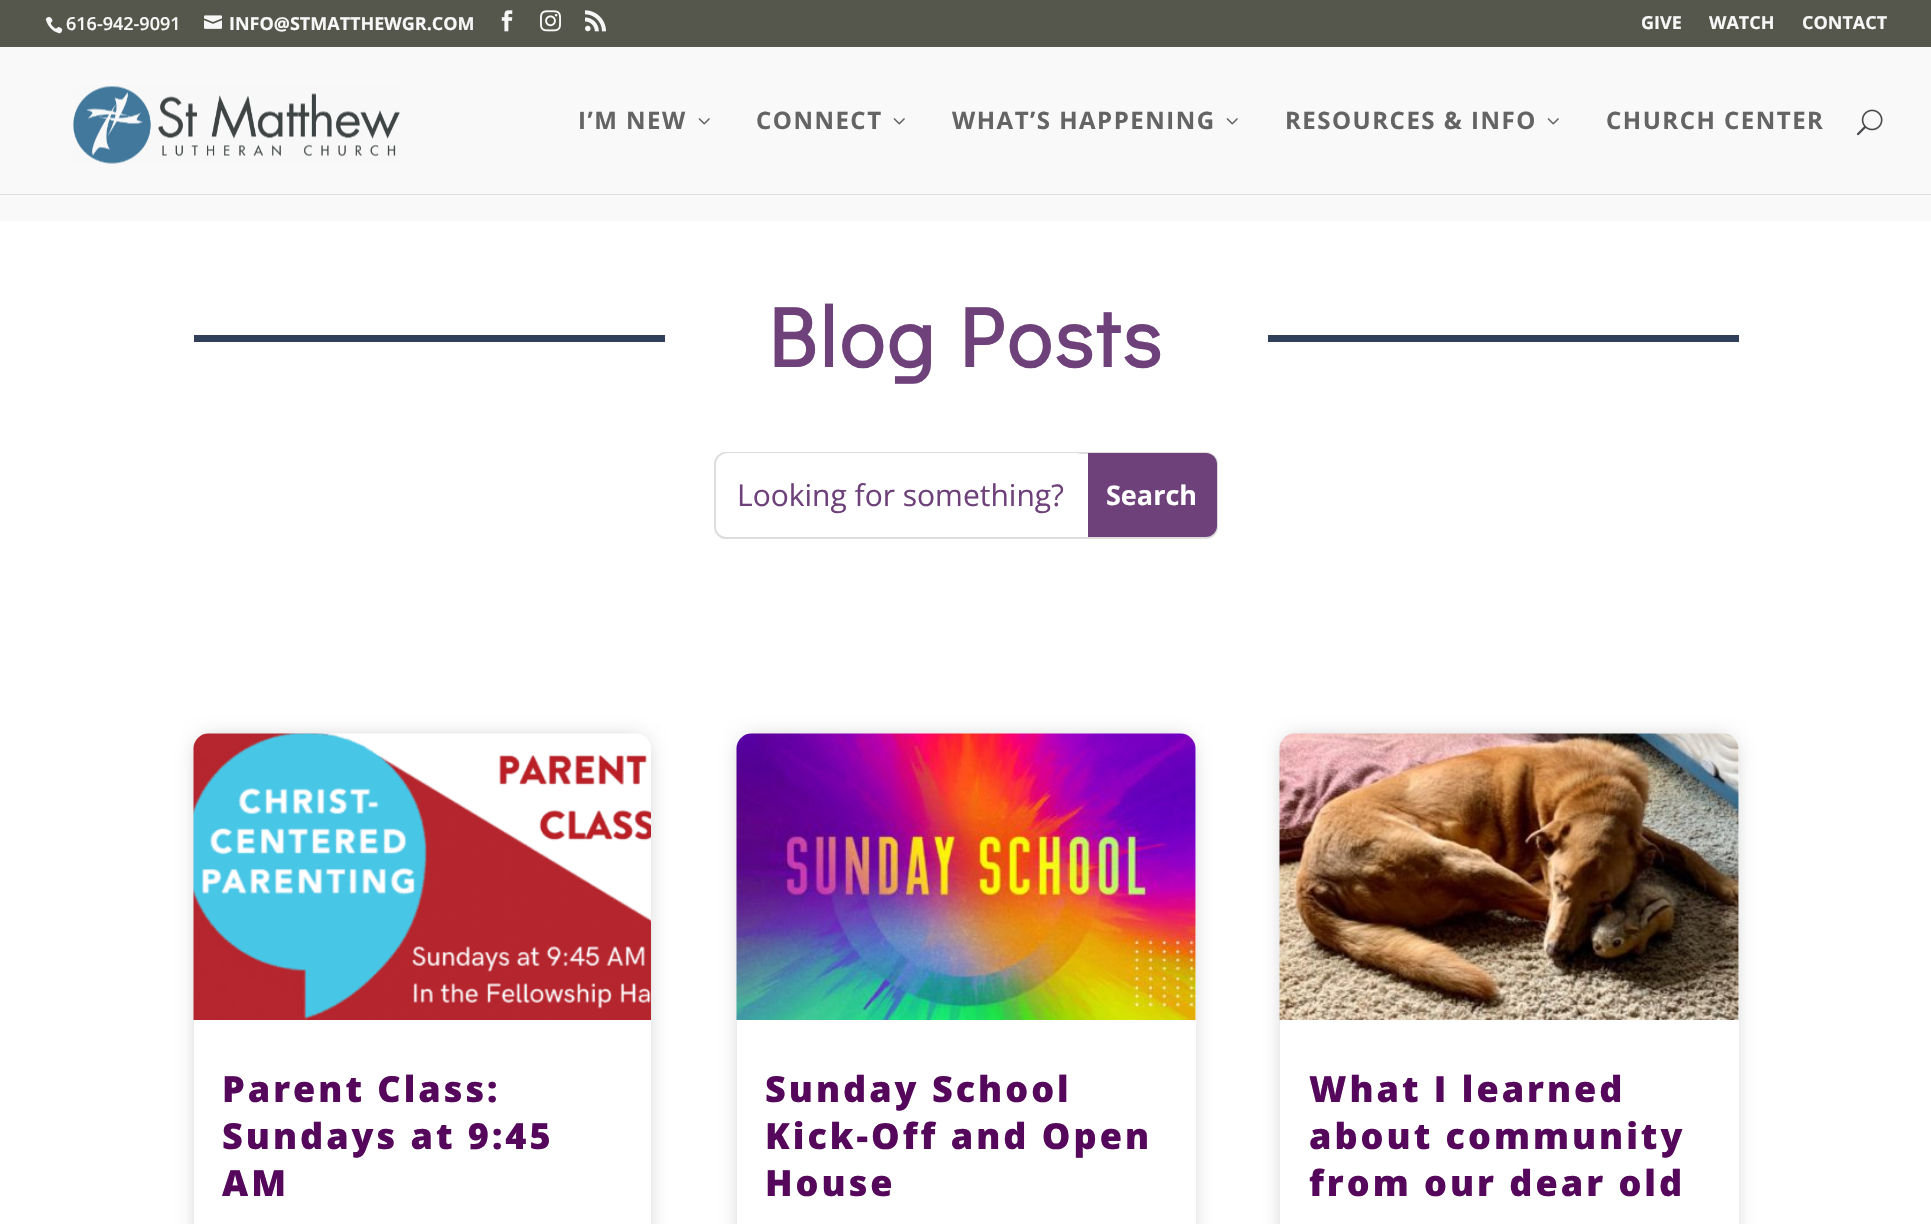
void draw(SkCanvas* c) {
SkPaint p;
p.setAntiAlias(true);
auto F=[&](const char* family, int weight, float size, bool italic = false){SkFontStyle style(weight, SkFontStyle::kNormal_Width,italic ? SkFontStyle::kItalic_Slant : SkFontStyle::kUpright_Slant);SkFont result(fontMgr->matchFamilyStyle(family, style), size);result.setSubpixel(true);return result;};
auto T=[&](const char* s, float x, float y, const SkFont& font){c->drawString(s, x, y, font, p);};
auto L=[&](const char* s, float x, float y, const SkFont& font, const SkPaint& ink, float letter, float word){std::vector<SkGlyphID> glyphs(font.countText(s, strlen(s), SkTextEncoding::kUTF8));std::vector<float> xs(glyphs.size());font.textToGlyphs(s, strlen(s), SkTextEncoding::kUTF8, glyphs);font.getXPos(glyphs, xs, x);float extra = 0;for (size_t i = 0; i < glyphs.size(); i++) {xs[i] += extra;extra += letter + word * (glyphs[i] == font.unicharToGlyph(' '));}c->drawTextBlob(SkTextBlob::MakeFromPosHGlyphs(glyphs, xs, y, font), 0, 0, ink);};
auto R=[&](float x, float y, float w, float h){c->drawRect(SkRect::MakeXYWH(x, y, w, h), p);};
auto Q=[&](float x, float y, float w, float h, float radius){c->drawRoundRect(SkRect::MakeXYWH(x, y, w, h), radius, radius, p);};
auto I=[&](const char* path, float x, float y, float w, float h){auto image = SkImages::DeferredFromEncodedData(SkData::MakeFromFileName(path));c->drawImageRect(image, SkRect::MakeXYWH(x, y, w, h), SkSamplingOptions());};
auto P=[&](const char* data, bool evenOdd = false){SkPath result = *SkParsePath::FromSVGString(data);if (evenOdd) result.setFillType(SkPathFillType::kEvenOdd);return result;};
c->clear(0xfff9f9f9);
p.setColor(0xff55574c);
R(0,0,1931,47);
I("1.png",45,16,18,18);
auto f1 = F("Open Sans",600,18);
p.setColor(0xfff7f7f7);
T("616-942-9091",66,30,f1);
I("2.png",204,15,18,14);
auto f2 = F("Open Sans",700,18);
T("INFO@STMATTHEWGR.COM",229,30,f2);
I("3.png",501,10,12,22);
I("4.png",540,10,21,22);
I("5.png",585,10,21,22);
T("GIVE",1641,29,f2);
T("WATCH",1709,29,f2);
T("CONTACT",1802,29,f2);
p.setColor(0xffe0e0e0);
R(0,194,1931,1);
I("6.png",73,86,327,78);
auto f3 = F("Open Sans",700,24);
p.setColor(0xff646464);
L("I’M NEW",578,129,f3,p,1.5,0);
I("7.png",698,118,12,7);
L("CONNECT",756,129,f3,p,1.5,0);
I("7.png",893,118,12,7);
L("WHAT’S HAPPENING",952,129,f3,p,1.5,0);
I("7.png",1226,118,12,7);
L("RESOURCES & INFO",1285,129,f3,p,1.5,0);
I("7.png",1547,118,12,7);
L("CHURCH CENTER",1606,129,f3,p,1.5,0);
I("8.png",1856,109,27,27);
p.setColor(0xffffffff);
R(0,221,1931,1003);
p.setColor(0xff31405a);
R(194,335,1545,7);
p.setColor(0xffffffff);
R(665,335,603,7);
auto f4 = F("Didact Gothic",700,84);
p.setColor(0xff6e417a);
L("Blog Posts",768,367,f4,p,3,0);
p.setStroke(true);
p.setStrokeWidth(2);
p.setColor(0xffdddddd);
c->drawRoundRect(SkRect::MakeXYWH(715,453,502,85),11,11,p);
c->save();
c->clipPath(P("M727 453h479c6 0 11 5 11 11v62c0 6-5 11-11 11h-479c-6 0-11-5-11-11v-62c0-6 5-11 11-11z"),true);
p.setStroke(false);
p.setColor(0xffffffff);
Q(716,453,372,84,12);
c->restore();
auto f5 = F("Open Sans",400,30);
p.setColor(0xff6e417a);
T("Looking for something?",737,506,f5);
c->drawPath(P("M1088 453h118c6 0 11 5 11 11v62c0 6-5 11-11 11h-118z"),p);
auto f6 = F("Open Sans",700,27);
p.setColor(0xffffffff);
T("Search",1106,505,f6);
p.setColor(0x4d000000);
p.setMaskFilter(SkMaskFilter::MakeBlur(kNormal_SkBlurStyle, 11));
c->drawRoundRect(SkRect::MakeXYWH(201,741,443,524),8,8,p);
p.setMaskFilter(nullptr);
p.setColor(0xffffffff);
Q(194,734,457,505,15);
I("9.png",193,733,458,287);
auto f7 = F("Open Sans",800,36);
p.setColor(0xff55075b);
L("Parent Class:",222,1102,f7,p,3,0);
L("Sundays at 9:45",222,1149,f7,p,3,0);
L("AM",222,1196,f7,p,3,0);
p.setColor(0x4d000000);
p.setMaskFilter(SkMaskFilter::MakeBlur(kNormal_SkBlurStyle, 11));
c->drawRoundRect(SkRect::MakeXYWH(744,741,444,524),8,8,p);
p.setMaskFilter(nullptr);
p.setColor(0xffffffff);
Q(737,734,459,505,15);
I("10.png",736,733,460,287);
p.setColor(0xff55075b);
L("Sunday School",765,1102,f7,p,3,0);
L("Kick-Off and Open",765,1149,f7,p,3,0);
L("House",765,1196,f7,p,3,0);
p.setColor(0x4d000000);
p.setMaskFilter(SkMaskFilter::MakeBlur(kNormal_SkBlurStyle, 11));
c->drawRoundRect(SkRect::MakeXYWH(1287,741,444,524),8,8,p);
p.setMaskFilter(nullptr);
p.setColor(0xffffffff);
Q(1280,734,459,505,15);
I("11.png",1279,733,460,287);
p.setColor(0xff55075b);
L("What I learned",1309,1102,f7,p,3,0);
L("about community",1309,1149,f7,p,3,0);
L("from our dear old",1309,1196,f7,p,3,0);
}
